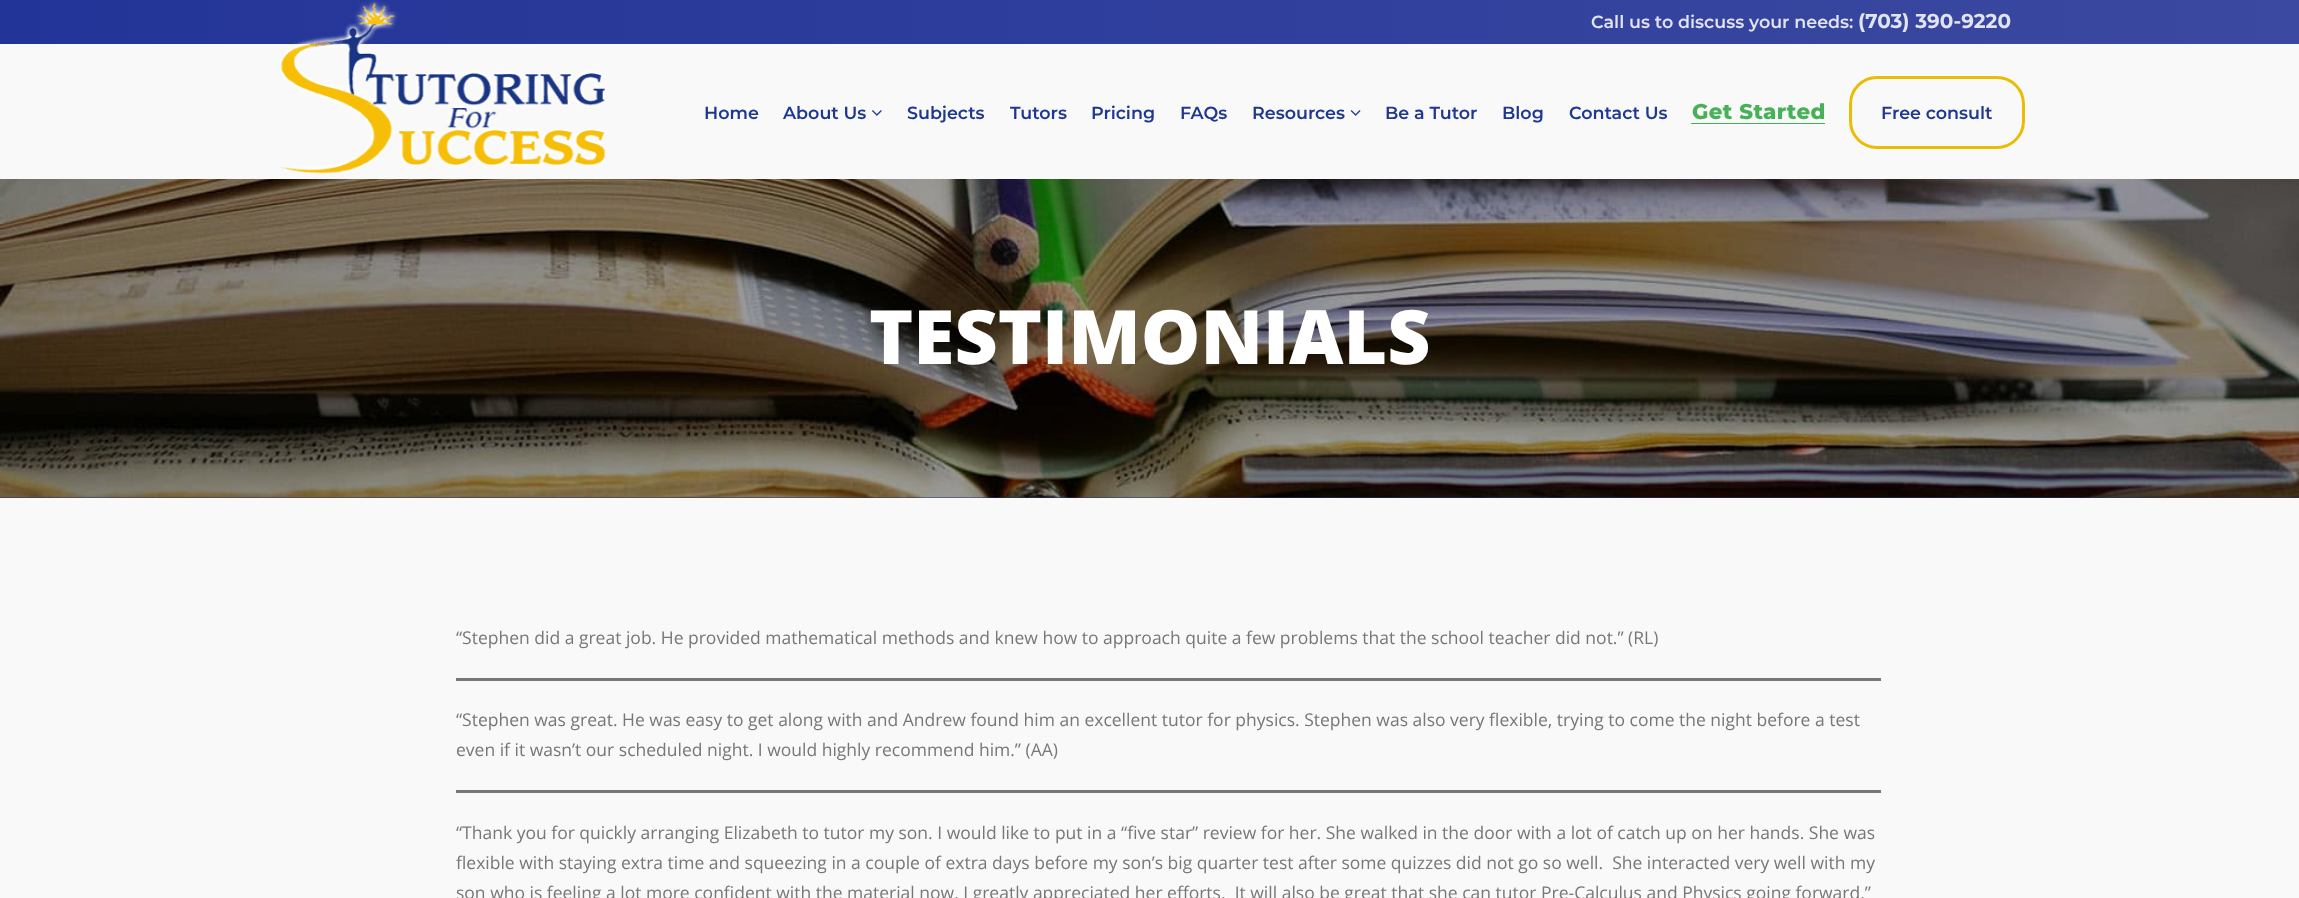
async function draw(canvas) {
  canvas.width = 2299
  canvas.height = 898
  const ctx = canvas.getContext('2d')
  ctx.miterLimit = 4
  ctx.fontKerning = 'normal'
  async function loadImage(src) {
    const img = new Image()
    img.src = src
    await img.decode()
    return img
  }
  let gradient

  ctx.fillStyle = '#f9f9f9'
  ctx.fillRect(0, 0, 2299, 898)
  gradient = ctx.createLinearGradient(0, 22, 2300, 22)
  gradient.addColorStop(0, '#233498')
  gradient.addColorStop(1, '#3b49a0')
  ctx.fillStyle = gradient
  ctx.fillRect(0, 0, 2299, 44)
  ctx.font = '600 17.5px Montserrat'
  ctx.fillStyle = '#e1e3f0'
  ctx.fillText('Call us to discuss your needs:', 1591, 28)
  ctx.font = 'bold 20px Montserrat'
  ctx.fillText('(703) 390-9220', 1858, 28)
  ctx.drawImage(await loadImage('image0.png'), 280, 0, 325, 174)
  ctx.font = '600 17.5px Montserrat'
  ctx.fillStyle = '#1e3791'
  ctx.fillText('Home', 704, 119)
  ctx.fillText('About Us', 783, 119)
  ctx.drawImage(await loadImage('image1.png'), 872, 110, 10, 6)
  ctx.fillText('Subjects', 907, 119)
  ctx.fillText('Tutors', 1010, 119)
  ctx.fillText('Pricing', 1091, 119)
  ctx.fillText('FAQs', 1180, 119)
  ctx.fillText('Resources', 1252, 119)
  ctx.drawImage(await loadImage('image2.png'), 1350, 110, 11, 6)
  ctx.fillText('Be a Tutor', 1385, 119)
  ctx.fillText('Blog', 1502, 119)
  ctx.fillText('Contact Us', 1569, 119)
  ctx.letterSpacing = '0.4px'
  ctx.font = '800 21.25px Montserrat'
  ctx.fillStyle = '#47b158'
  ctx.fillText('Get Started', 1692, 119)
  ctx.fillRect(1691, 123, 134, 1)
  ctx.beginPath()
  ctx.roundRect(1850.5, 77.5, 173, 70, 26.5)
  ctx.strokeStyle = '#eabc03'
  ctx.lineWidth = 3
  ctx.stroke()
  ctx.letterSpacing = '0px'
  ctx.font = '600 17.5px Montserrat'
  ctx.fillStyle = '#1e3791'
  ctx.fillText('Free consult', 1881, 119)
  ctx.fillStyle = '#26316d'
  ctx.fillRect(0, 497, 2299, 1)
  ctx.drawImage(await loadImage('image3.png'), 0, 179, 2299, 319)
  ctx.font = '800 75px Open Sans'
  ctx.fillStyle = '#fff'
  ctx.fillText('TESTIMONIALS', 869, 364)
  ctx.font = '17.5px Open Sans'
  ctx.fillStyle = '#777'
  ctx.fillText('“Stephen did a great job. He provided mathematical methods and knew how to approach quite a few problems that the school teacher did not.” (RL)', 456, 644)
  ctx.fillRect(456, 678, 1425, 3)
  ctx.fillText('“Stephen was great. He was easy to get along with and Andrew found him an excellent tutor for physics. Stephen was also very flexible, trying to come the night before a test', 456, 726)
  ctx.fillText('even if it wasn’t our scheduled night. I would highly recommend him.” (AA)', 456, 756)
  ctx.fillRect(456, 790, 1425, 3)
  ctx.fillText('“Thank you for quickly arranging Elizabeth to tutor my son. I would like to put in a “five star” review for her. She walked in the door with a lot of catch up on her hands. She was', 456, 839)
  ctx.fillText('flexible with staying extra time and squeezing in a couple of extra days before my son’s big quarter test after some quizzes did not go so well.  She interacted very well with my', 456, 869)
  ctx.fillText('son who is feeling a lot more confident with the material now. I greatly appreciated her efforts.  It will also be great that she can tutor Pre-Calculus and Physics going forward.”', 456, 899)
}

draw(document.querySelector('canvas'))
